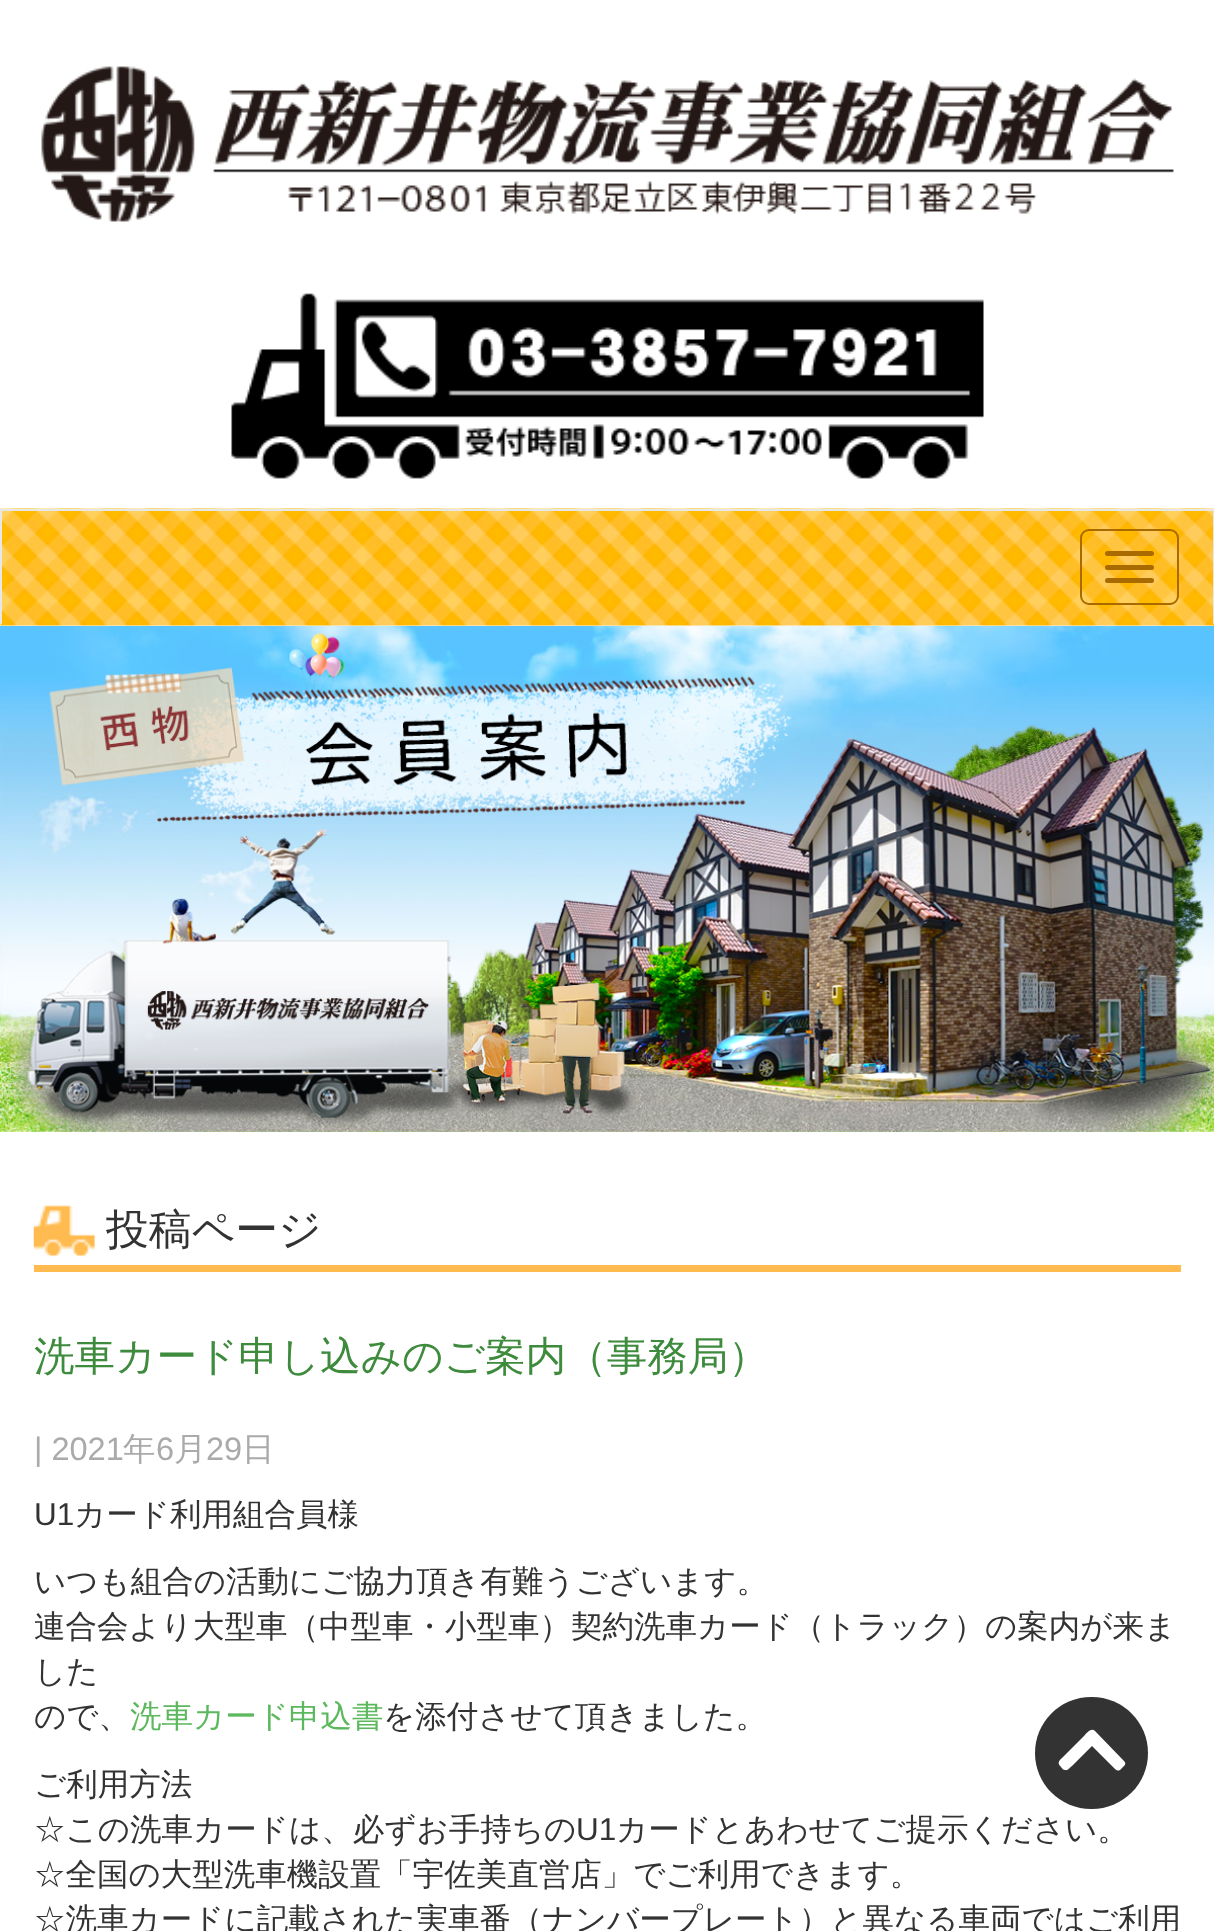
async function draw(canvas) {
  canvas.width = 1214
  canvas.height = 1931
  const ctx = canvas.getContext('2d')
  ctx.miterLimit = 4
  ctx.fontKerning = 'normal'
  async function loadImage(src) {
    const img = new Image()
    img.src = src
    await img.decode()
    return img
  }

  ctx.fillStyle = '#fff'
  ctx.fillRect(0, 0, 1214, 1931)
  ctx.drawImage(await loadImage('image0.png'), 41, 66, 1133, 156)
  ctx.drawImage(await loadImage('image1.png'), 231, 293, 753, 186)
  ctx.fillStyle = '#f8f8f8'
  ctx.fillRect(0, 625, 1214, 1)
  ctx.drawImage(await loadImage('image2.png'), 0, 508, 1214, 118)
  ctx.fillStyle = '#e7e7e7'
  ctx.fillRect(0, 509, 1214, 2)
  ctx.beginPath()
  ctx.moveTo(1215, 508)
  ctx.lineTo(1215, 626)
  ctx.lineTo(1213, 623)
  ctx.lineTo(1213, 511)
  ctx.closePath()
  ctx.fill()
  ctx.beginPath()
  ctx.moveTo(0, 626)
  ctx.lineTo(0, 508)
  ctx.lineTo(2, 511)
  ctx.lineTo(2, 623)
  ctx.closePath()
  ctx.fill()
  ctx.beginPath()
  ctx.roundRect(1081, 530, 97, 74, 8)
  ctx.strokeStyle = '#a96a00'
  ctx.lineWidth = 2
  ctx.stroke()
  ctx.fillStyle = '#a96a00'
  ctx.beginPath()
  ctx.roundRect(1105, 551, 49, 5, 2.5)
  ctx.fill()
  ctx.beginPath()
  ctx.roundRect(1105, 565, 49, 5, 2.5)
  ctx.fill()
  ctx.beginPath()
  ctx.roundRect(1105, 578, 49, 5, 2.5)
  ctx.fill()
  ctx.drawImage(await loadImage('image3.png'), 0, 626, 1214, 506)
  ctx.drawImage(await loadImage('image4.png'), 4, 633, 1210, 499)
  ctx.drawImage(await loadImage('image5.png'), 33, 1205, 63, 52)
  ctx.fillStyle = '#ffbb50'
  ctx.fillRect(34, 1265, 1147, 7)
  ctx.font = '500 42.75px WenQuanYi Zen Hei'
  ctx.fillStyle = '#333'
  ctx.fillText('投稿ページ', 106, 1244)
  ctx.font = '500 40.5px WenQuanYi Zen Hei'
  ctx.fillStyle = '#3e8b3e'
  ctx.fillText('洗車カード申し込みのご案内（事務局）', 34, 1370)
  ctx.font = '32.5px Liberation Sans'
  ctx.fillStyle = '#aaa'
  ctx.fillText('| 2021', 34, 1460)
  ctx.font = '500 32.5px WenQuanYi Zen Hei'
  ctx.fillText('年', 123, 1460)
  ctx.font = '32.5px Liberation Sans'
  ctx.fillText('6', 156, 1460)
  ctx.font = '500 32.5px WenQuanYi Zen Hei'
  ctx.fillText('月', 174, 1460)
  ctx.font = '32.5px Liberation Sans'
  ctx.fillText('29', 206, 1460)
  ctx.font = '500 32.5px WenQuanYi Zen Hei'
  ctx.fillText('日', 242, 1460)
  ctx.font = '31.5px Liberation Sans'
  ctx.fillStyle = '#333'
  ctx.fillText('U1', 34, 1525)
  ctx.font = '500 31.5px WenQuanYi Zen Hei'
  ctx.fillText('カード利用組合員様', 74, 1525)
  ctx.fillText('いつも組合の活動にご協力頂き有難うございます。', 34, 1592)
  ctx.fillText('連合会より大型車（中型車・小型車）契約洗車カード（トラック）の案内が来ま', 34, 1637)
  ctx.fillText('した', 34, 1682)
  ctx.fillText('ので、', 34, 1727)
  ctx.fillStyle = '#5cb85c'
  ctx.fillText('洗車カード申込書', 130, 1727)
  ctx.fillStyle = '#333'
  ctx.fillText('を添付させて頂きました。', 383, 1727)
  ctx.fillText('ご利用方法', 34, 1795)
  ctx.fillText('☆この洗車カードは、必ずお手持ちの', 34, 1840)
  ctx.font = '31.5px Liberation Sans'
  ctx.fillText('U1', 576, 1840)
  ctx.font = '500 31.5px WenQuanYi Zen Hei'
  ctx.fillText('カードとあわせてご提示ください。', 616, 1840)
  ctx.fillText('☆全国の大型洗車機設置「宇佐美直営店」でご利用できます。', 34, 1885)
  ctx.fillText('☆洗車カードに記載された実車番（ナンバープレート）と異なる車両ではご利用', 34, 1930)
  ctx.beginPath()
  ctx.roundRect(1035, 1697, 113, 112, 56)
  ctx.fill()
  ctx.fillStyle = '#fff'
  ctx.beginPath()
  ctx.moveTo(1095, 1731)
  ctx.lineTo(1124, 1761)
  ctx.bezierCurveTo(1127, 1764, 1124, 1766, 1122, 1768)
  ctx.bezierCurveTo(1118, 1773, 1116, 1770, 1112, 1766)
  ctx.lineTo(1092, 1746)
  ctx.lineTo(1072, 1766)
  ctx.bezierCurveTo(1070, 1767, 1068, 1771, 1065, 1770)
  ctx.bezierCurveTo(1063, 1770, 1062, 1768, 1061, 1767)
  ctx.bezierCurveTo(1056, 1762, 1060, 1760, 1064, 1756)
  ctx.lineTo(1084, 1736)
  ctx.bezierCurveTo(1086, 1734, 1091, 1727, 1095, 1731)
  ctx.closePath()
  ctx.fill()
}

draw(document.querySelector('canvas'))
